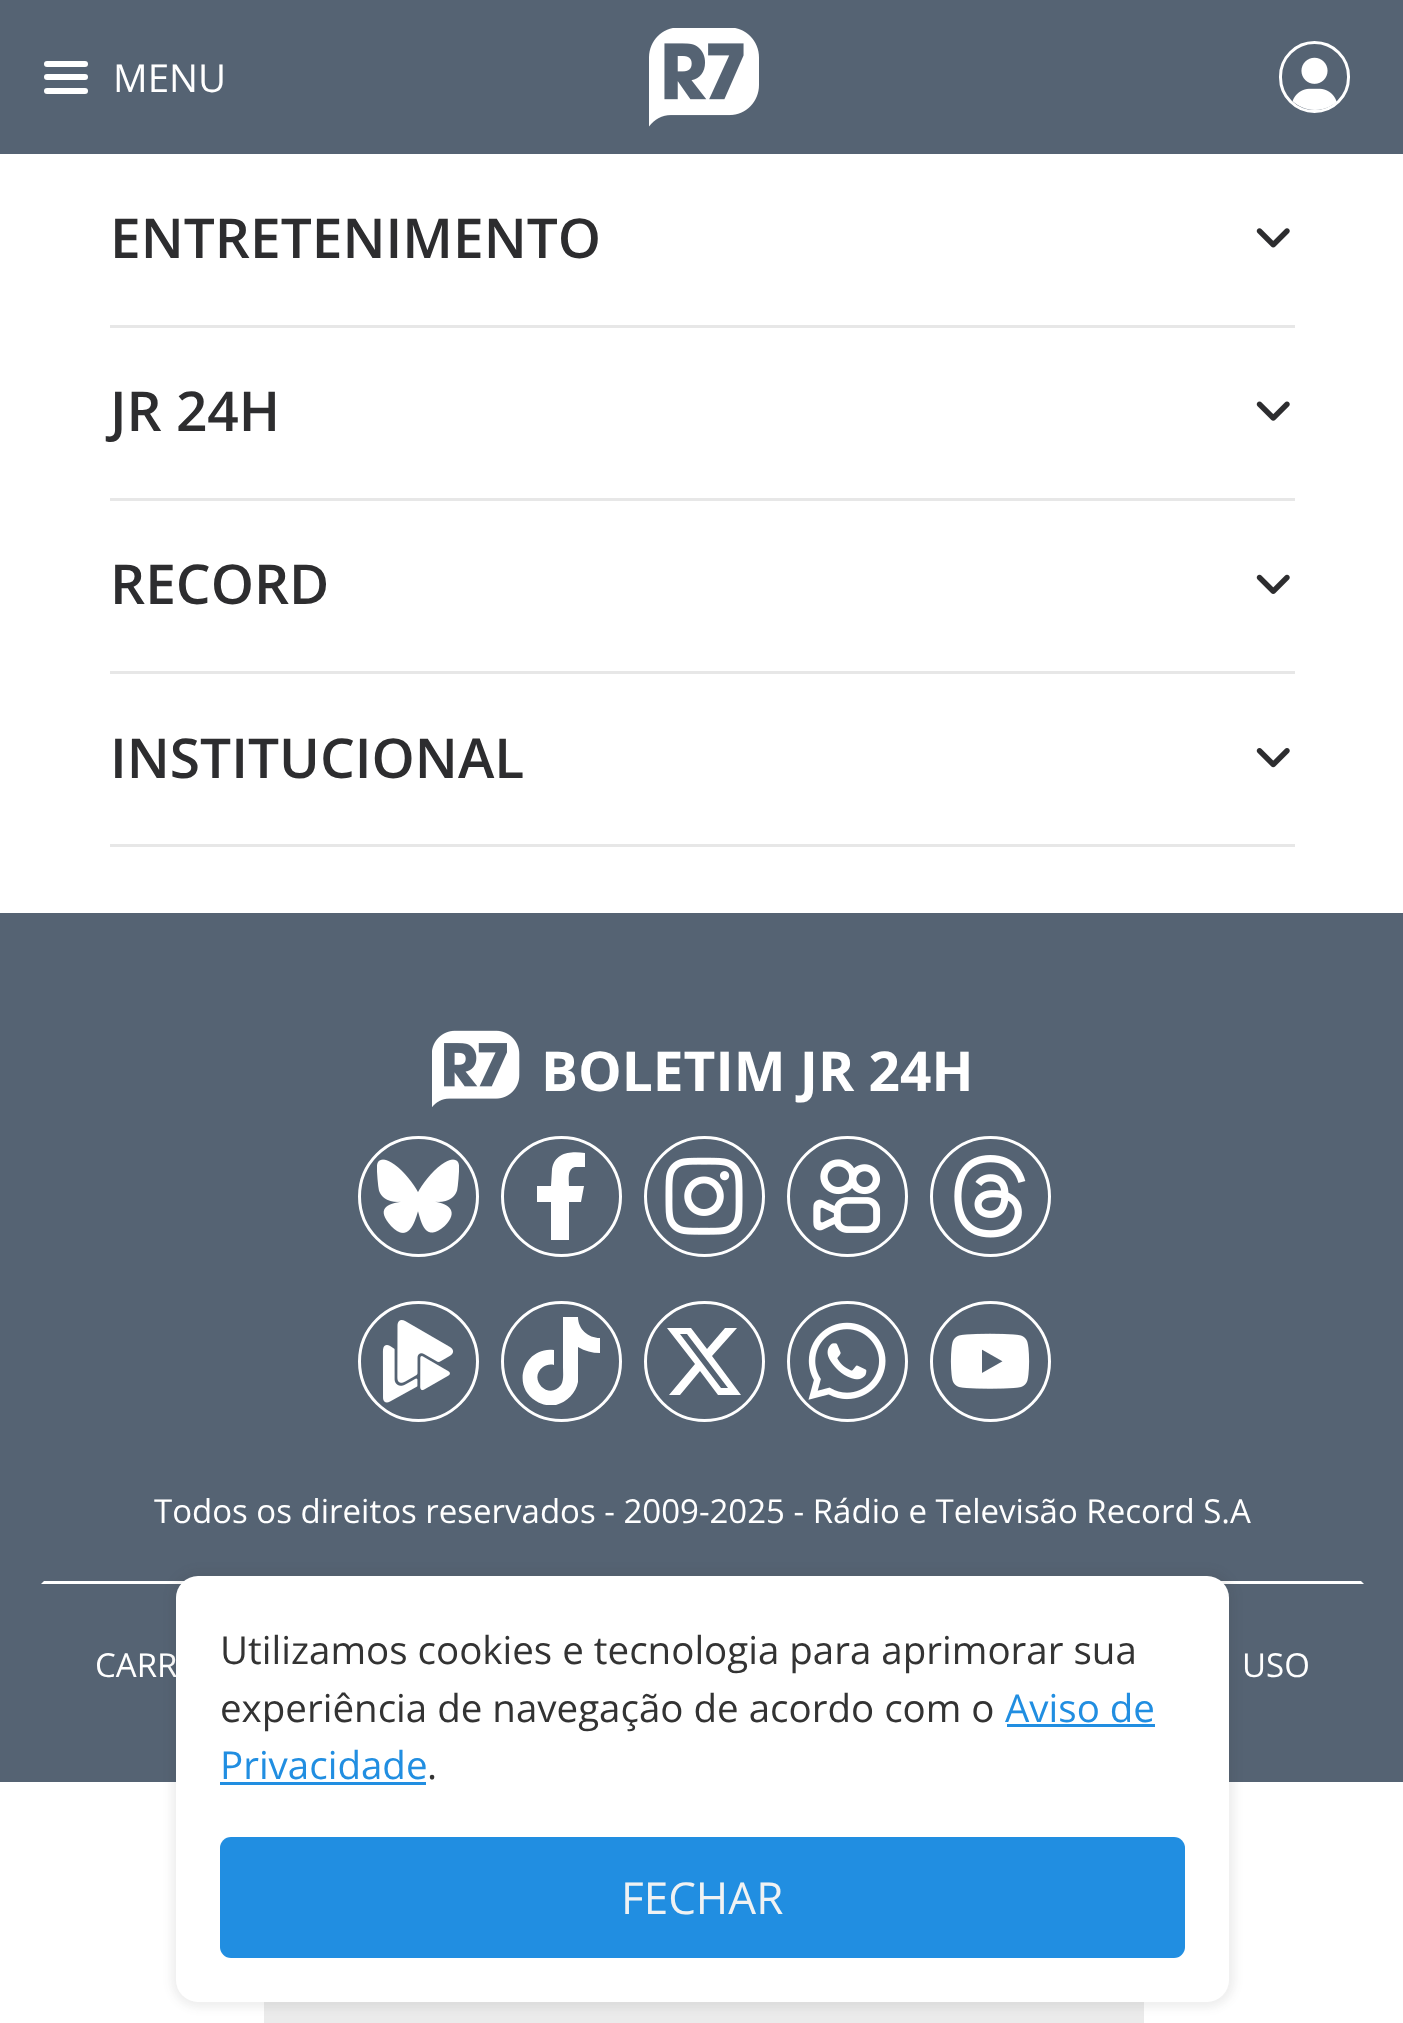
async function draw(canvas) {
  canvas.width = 1403
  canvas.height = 2023
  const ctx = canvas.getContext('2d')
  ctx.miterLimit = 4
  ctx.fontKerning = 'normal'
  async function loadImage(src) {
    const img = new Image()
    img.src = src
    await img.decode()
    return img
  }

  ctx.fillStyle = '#fff'
  ctx.fillRect(0, 0, 1403, 2023)
  ctx.fillStyle = '#556373'
  ctx.fillRect(0, 0, 1403, 154)
  ctx.fillStyle = '#fff'
  ctx.beginPath()
  ctx.roundRect(44, 61, 44, 6, 3)
  ctx.fill()
  ctx.beginPath()
  ctx.roundRect(44, 74, 44, 6, 3)
  ctx.fill()
  ctx.beginPath()
  ctx.roundRect(44, 88, 44, 6, 3)
  ctx.fill()
  ctx.font = '38.5px Open Sans'
  ctx.fillText('MENU', 113, 92)
  ctx.drawImage(await loadImage('image0.png'), 649, 28, 110, 99)
  ctx.beginPath()
  ctx.roundRect(1280.5, 42.5, 68, 69, 34)
  ctx.strokeStyle = '#fff'
  ctx.lineWidth = 3
  ctx.stroke()
  ctx.drawImage(await loadImage('image1.png'), 1292, 57, 45, 53)
  ctx.fillStyle = '#e7e7e7'
  ctx.fillRect(110, 325, 1185, 3)
  ctx.font = '600 55px Open Sans'
  ctx.fillStyle = '#2d2d2f'
  ctx.fillText('ENTRETENIMENTO', 110, 258)
  ctx.drawImage(await loadImage('image2.png'), 1256, 228, 34, 20)
  ctx.fillStyle = '#e7e7e7'
  ctx.fillRect(110, 498, 1185, 3)
  ctx.fillStyle = '#2d2d2f'
  ctx.fillText('JR 24H', 110, 431)
  ctx.drawImage(await loadImage('image3.png'), 1256, 401, 34, 20)
  ctx.fillStyle = '#e7e7e7'
  ctx.fillRect(110, 671, 1185, 3)
  ctx.fillStyle = '#2d2d2f'
  ctx.fillText('RECORD', 110, 604)
  ctx.drawImage(await loadImage('image4.png'), 1256, 574, 34, 20)
  ctx.fillStyle = '#e7e7e7'
  ctx.fillRect(110, 844, 1185, 3)
  ctx.fillStyle = '#2d2d2f'
  ctx.fillText('INSTITUCIONAL', 110, 778)
  ctx.drawImage(await loadImage('image5.png'), 1256, 748, 34, 20)
  ctx.fillStyle = '#556373'
  ctx.fillRect(0, 913, 1403, 869)
  ctx.fillStyle = '#fff'
  ctx.beginPath()
  ctx.moveTo(1364, 1584)
  ctx.lineTo(41, 1584)
  ctx.lineTo(44, 1581)
  ctx.lineTo(1361, 1581)
  ctx.closePath()
  ctx.fill()
  ctx.drawImage(await loadImage('image6.png'), 432, 1030, 88, 77)
  ctx.font = 'bold 55px Open Sans'
  ctx.fillText('BOLETIM JR 24H', 541, 1091)
  ctx.beginPath()
  ctx.arc(418.5, 1196.5, 59, 0, 2 * Math.PI)
  ctx.stroke()
  ctx.drawImage(await loadImage('image7.png'), 377, 1159, 82, 74)
  ctx.beginPath()
  ctx.arc(561.5, 1196.5, 59, 0, 2 * Math.PI)
  ctx.stroke()
  ctx.beginPath()
  ctx.moveTo(581, 1202)
  ctx.lineTo(584, 1186)
  ctx.lineTo(569, 1186)
  ctx.bezierCurveTo(569, 1179, 567, 1169, 575, 1167)
  ctx.lineTo(585, 1167)
  ctx.lineTo(585, 1153)
  ctx.bezierCurveTo(571, 1151, 555, 1152, 552, 1169)
  ctx.lineTo(551, 1186)
  ctx.lineTo(537, 1186)
  ctx.lineTo(537, 1202)
  ctx.lineTo(551, 1202)
  ctx.lineTo(551, 1240)
  ctx.lineTo(569, 1240)
  ctx.lineTo(569, 1202)
  ctx.closePath()
  ctx.fill()
  ctx.beginPath()
  ctx.arc(704.5, 1196.5, 59, 0, 2 * Math.PI)
  ctx.stroke()
  ctx.drawImage(await loadImage('image8.png'), 665, 1157, 78, 78)
  ctx.beginPath()
  ctx.arc(847.5, 1196.5, 59, 0, 2 * Math.PI)
  ctx.stroke()
  ctx.drawImage(await loadImage('image9.png'), 813, 1159, 68, 74)
  ctx.beginPath()
  ctx.arc(990.5, 1196.5, 59, 0, 2 * Math.PI)
  ctx.stroke()
  ctx.drawImage(await loadImage('image10.png'), 954, 1155, 72, 83)
  ctx.beginPath()
  ctx.arc(418.5, 1361.5, 59, 0, 2 * Math.PI)
  ctx.stroke()
  ctx.drawImage(await loadImage('image11.png'), 382, 1320, 72, 83)
  ctx.beginPath()
  ctx.arc(561.5, 1361.5, 59, 0, 2 * Math.PI)
  ctx.stroke()
  ctx.save()
  ctx.beginPath()
  ctx.rect(520, 1317, 82, 88)
  ctx.clip()
  ctx.beginPath()
  ctx.moveTo(600, 1353)
  ctx.bezierCurveTo(592, 1353, 585, 1351, 578, 1347)
  ctx.lineTo(578, 1382)
  ctx.bezierCurveTo(576, 1393, 567, 1402, 556, 1405)
  ctx.bezierCurveTo(549, 1406, 542, 1405, 536, 1401)
  ctx.bezierCurveTo(510, 1385, 525, 1346, 554, 1350)
  ctx.lineTo(554, 1365)
  ctx.bezierCurveTo(550, 1364, 546, 1365, 543, 1367)
  ctx.bezierCurveTo(527, 1379, 549, 1401, 561, 1385)
  ctx.bezierCurveTo(564, 1380, 563, 1373, 563, 1367)
  ctx.lineTo(563, 1317)
  ctx.lineTo(578, 1317)
  ctx.bezierCurveTo(578, 1329, 588, 1338, 600, 1338)
  ctx.closePath()
  ctx.fill()
  ctx.restore()
  ctx.beginPath()
  ctx.arc(704.5, 1361.5, 59, 0, 2 * Math.PI)
  ctx.stroke()
  ctx.beginPath()
  ctx.moveTo(725, 1328)
  ctx.lineTo(737, 1328)
  ctx.lineTo(712, 1356)
  ctx.lineTo(741, 1395)
  ctx.lineTo(718, 1395)
  ctx.lineTo(700, 1371)
  ctx.lineTo(680, 1395)
  ctx.lineTo(669, 1395)
  ctx.lineTo(695, 1364)
  ctx.lineTo(667, 1328)
  ctx.lineTo(691, 1328)
  ctx.lineTo(707, 1349)
  ctx.closePath()
  ctx.moveTo(721, 1388)
  ctx.lineTo(728, 1388)
  ctx.lineTo(687, 1334)
  ctx.lineTo(680, 1334)
  ctx.closePath()
  ctx.fill()
  ctx.beginPath()
  ctx.arc(847.5, 1361.5, 59, 0, 2 * Math.PI)
  ctx.stroke()
  ctx.drawImage(await loadImage('image12.png'), 808, 1322, 78, 78)
  ctx.beginPath()
  ctx.arc(990.5, 1361.5, 59, 0, 2 * Math.PI)
  ctx.stroke()
  ctx.drawImage(await loadImage('image13.png'), 950, 1333, 80, 56)
  ctx.font = '33px Open Sans'
  ctx.fillText('Todos os direitos reservados - 2009-2025 - Rádio e Televisão Record S.A', 154, 1523)
  ctx.fillText('CARR', 95, 1677)
  ctx.fillText('USO', 1242, 1677)
  ctx.fillStyle = '#ebebeb'
  ctx.fillRect(264, 2002, 880, 21)
  ctx.fillStyle = '#33333314'
  ctx.filter = 'blur(4.5px)'
  ctx.beginPath()
  ctx.roundRect(171, 1570, 1064, 438, 28)
  ctx.fill()
  ctx.filter = 'none'
  ctx.fillStyle = '#fff'
  ctx.beginPath()
  ctx.roundRect(176, 1576, 1053, 426, 22)
  ctx.fill()
  ctx.font = '38.5px Open Sans'
  ctx.fillStyle = '#333'
  ctx.fillText('Utilizamos cookies e tecnologia para aprimorar sua', 220, 1664)
  ctx.fillText('experiência de navegação de acordo com o', 220, 1722)
  ctx.fillStyle = '#218ee1'
  ctx.fillText('Aviso de', 1005, 1722)
  ctx.fillRect(1007, 1724, 148, 3)
  ctx.fillText('Privacidade', 220, 1779)
  ctx.fillRect(220, 1782, 206, 3)
  ctx.fillStyle = '#333'
  ctx.fillText('.', 427, 1779)
  ctx.fillStyle = '#218ee1'
  ctx.beginPath()
  ctx.roundRect(220, 1837, 965, 121, 11)
  ctx.fill()
  ctx.font = '44px Open Sans'
  ctx.fillStyle = '#f0f2f3'
  ctx.fillText('FECHAR', 621, 1914)
}

draw(document.querySelector('canvas'))
